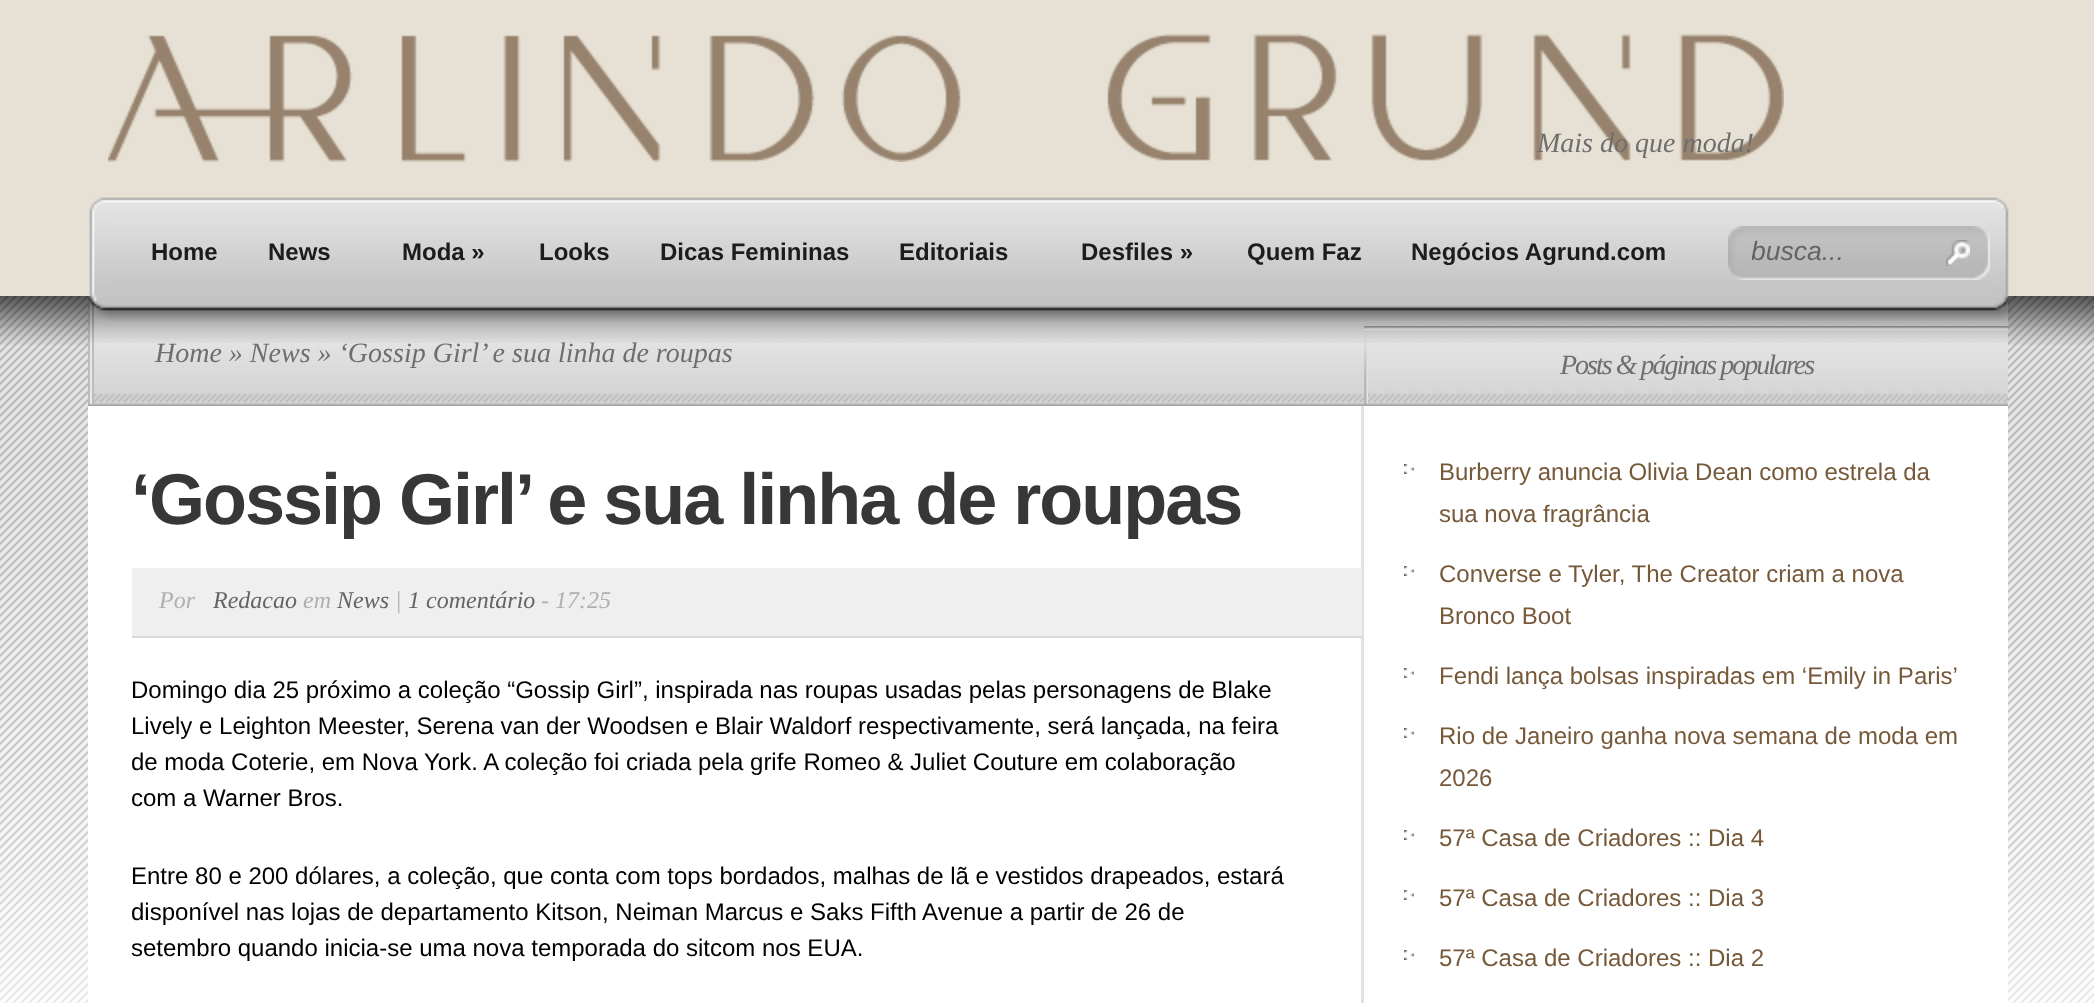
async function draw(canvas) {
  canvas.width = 2094
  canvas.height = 1003
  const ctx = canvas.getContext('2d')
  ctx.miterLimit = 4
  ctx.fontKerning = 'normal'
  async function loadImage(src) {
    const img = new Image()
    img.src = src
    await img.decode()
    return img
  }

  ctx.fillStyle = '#e7e1d5'
  ctx.fillRect(0, 0, 2094, 1003)
  ctx.drawImage(await loadImage('image0.png'), 108, 34, 1676, 128)
  ctx.font = 'italic 28px Liberation Serif'
  ctx.fillStyle = '#6e6e6e'
  ctx.fillText('Mais do que moda!', 1537, 152)
  ctx.drawImage(await loadImage('image6.png'), 0, 296, 2094, 707)
  ctx.drawImage(await loadImage('image7.png'), 0, 296, 2094, 49)
  ctx.drawImage(await loadImage('image8.png'), 88, 296, 1920, 110)
  ctx.drawImage(await loadImage('image10.png'), 88, 296, 6, 108)
  ctx.fillText('Home » News » ‘Gossip Girl’ e sua linha de roupas', 155, 362)
  ctx.drawImage(await loadImage('image11.png'), 1364, 326, 4, 79)
  ctx.drawImage(await loadImage('image12.png'), 1368, 326, 640, 79)
  ctx.drawImage(await loadImage('image9.png'), 88, 296, 1920, 47)
  ctx.drawImage(await loadImage('image1.png'), 88, 197, 20, 123)
  ctx.drawImage(await loadImage('image2.png'), 108, 197, 1882, 124)
  ctx.font = 'bold 24px Liberation Sans'
  ctx.fillStyle = '#1c1c1c'
  ctx.fillText('Home', 151, 260)
  ctx.fillText('News', 268, 260)
  ctx.fillText('Moda »', 402, 260)
  ctx.fillText('Looks', 539, 260)
  ctx.fillText('Dicas Femininas', 660, 260)
  ctx.fillText('Editoriais', 899, 260)
  ctx.fillText('Desfiles »', 1081, 260)
  ctx.fillText('Quem Faz', 1247, 260)
  ctx.fillText('Negócios Agrund.com', 1411, 260)
  ctx.drawImage(await loadImage('image3.png'), 1728, 226, 262, 54)
  ctx.save()
  ctx.beginPath()
  ctx.rect(1752, 236, 190, 30)
  ctx.clip()
  ctx.font = 'italic 26.5px Liberation Sans'
  ctx.fillStyle = '#656363'
  ctx.fillText('busca...', 1751, 260)
  ctx.restore()
  ctx.drawImage(await loadImage('image4.png'), 1946, 240, 24, 26)
  ctx.drawImage(await loadImage('image5.png'), 1990, 197, 24, 124)
  ctx.fillStyle = '#fff'
  ctx.fillRect(88, 406, 1920, 597)
  ctx.fillStyle = '#e1e1e1'
  ctx.fillRect(1361, 406, 3, 597)
  ctx.letterSpacing = '-2px'
  ctx.font = 'italic 28px Liberation Serif'
  ctx.fillStyle = '#6e6e6e'
  ctx.fillText('Posts & páginas populares', 1560, 374)
  ctx.drawImage(await loadImage('image13.png'), 1404, 464, 10, 10)
  ctx.letterSpacing = '0px'
  ctx.font = '24px Liberation Sans'
  ctx.fillStyle = '#765939'
  ctx.fillText('Burberry anuncia Olivia Dean como estrela da', 1439, 480)
  ctx.fillText('sua nova fragrância', 1439, 522)
  ctx.drawImage(await loadImage('image13.png'), 1404, 566, 10, 10)
  ctx.fillText('Converse e Tyler, The Creator criam a nova', 1439, 582)
  ctx.fillText('Bronco Boot', 1439, 624)
  ctx.drawImage(await loadImage('image13.png'), 1404, 668, 10, 10)
  ctx.fillText('Fendi lança bolsas inspiradas em ‘Emily in Paris’', 1439, 684)
  ctx.drawImage(await loadImage('image13.png'), 1404, 728, 10, 10)
  ctx.fillText('Rio de Janeiro ganha nova semana de moda em', 1439, 744)
  ctx.fillText('2026', 1439, 786)
  ctx.drawImage(await loadImage('image13.png'), 1404, 830, 10, 10)
  ctx.fillText('57ª Casa de Criadores :: Dia 4', 1439, 846)
  ctx.drawImage(await loadImage('image13.png'), 1404, 890, 10, 10)
  ctx.fillText('57ª Casa de Criadores :: Dia 3', 1439, 906)
  ctx.drawImage(await loadImage('image13.png'), 1404, 950, 10, 10)
  ctx.fillText('57ª Casa de Criadores :: Dia 2', 1439, 966)
  ctx.letterSpacing = '-2px'
  ctx.font = 'bold 72px Liberation Sans'
  ctx.fillStyle = '#383737'
  ctx.fillText('‘Gossip Girl’ e sua linha de roupas', 131, 524)
  ctx.fillStyle = '#efefef'
  ctx.fillRect(132, 568, 1230, 68)
  ctx.fillStyle = '#d8d8d8'
  ctx.fillRect(132, 636, 1230, 2)
  ctx.letterSpacing = '0px'
  ctx.font = 'italic 24px Liberation Serif'
  ctx.fillStyle = '#afafaf'
  ctx.fillText('Por', 159, 608)
  ctx.fillStyle = '#656363'
  ctx.fillText('Redacao', 213, 608)
  ctx.fillStyle = '#afafaf'
  ctx.fillText('em', 303, 608)
  ctx.fillStyle = '#656363'
  ctx.fillText('News', 337, 608)
  ctx.fillStyle = '#afafaf'
  ctx.fillText('|', 395, 608)
  ctx.fillStyle = '#656363'
  ctx.fillText('1 comentário', 408, 608)
  ctx.fillStyle = '#afafaf'
  ctx.fillText('- 17:25', 541, 608)
  ctx.font = '24px Liberation Sans'
  ctx.fillStyle = '#000'
  ctx.fillText('Domingo dia 25 próximo a coleção “Gossip Girl”, inspirada nas roupas usadas pelas personagens de Blake', 131, 698)
  ctx.fillText('Lively e Leighton Meester, Serena van der Woodsen e Blair Waldorf respectivamente, será lançada, na feira', 131, 734)
  ctx.fillText('de moda Coterie, em Nova York. A coleção foi criada pela grife Romeo & Juliet Couture em colaboração', 131, 770)
  ctx.fillText('com a Warner Bros.', 131, 806)
  ctx.fillText('Entre 80 e 200 dólares, a coleção, que conta com tops bordados, malhas de lã e vestidos drapeados, estará', 131, 884)
  ctx.fillText('disponível nas lojas de departamento Kitson, Neiman Marcus e Saks Fifth Avenue a partir de 26 de', 131, 920)
  ctx.fillText('setembro quando inicia-se uma nova temporada do sitcom nos EUA.', 131, 956)
}

draw(document.querySelector('canvas'))
